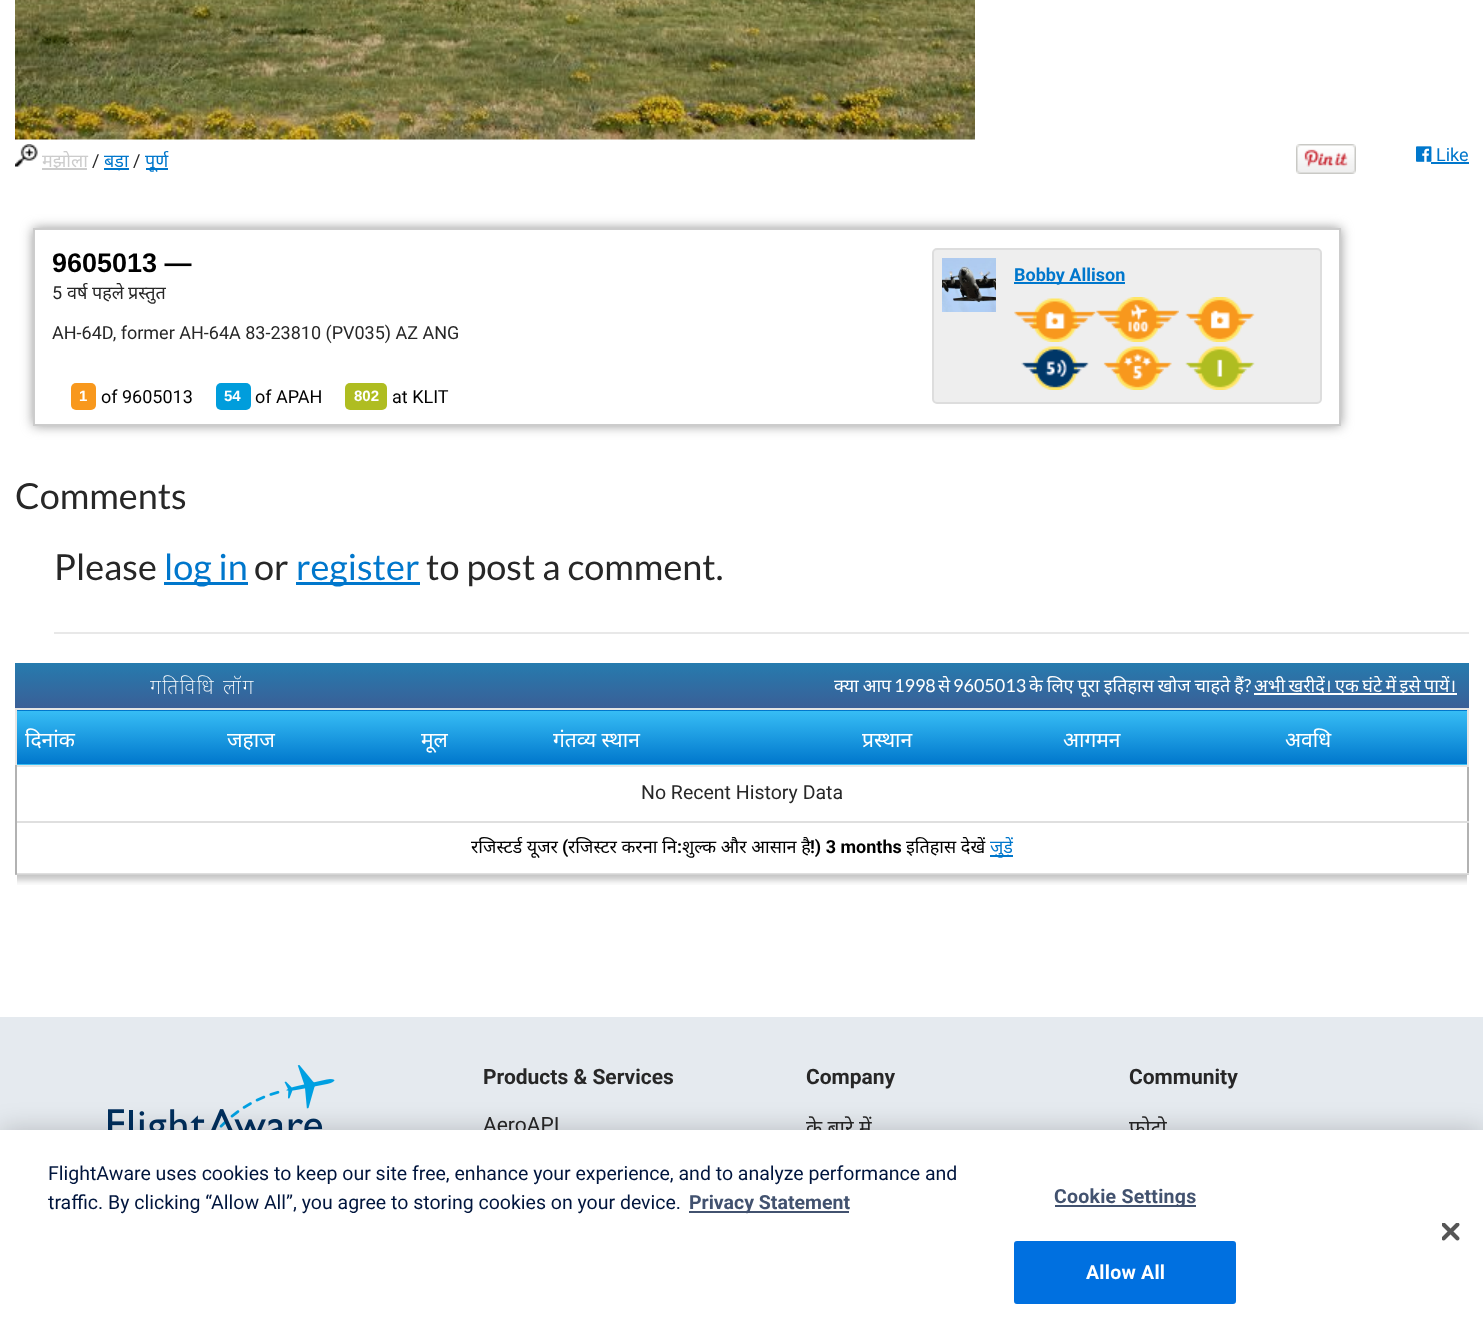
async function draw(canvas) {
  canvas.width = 1483
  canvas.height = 1333
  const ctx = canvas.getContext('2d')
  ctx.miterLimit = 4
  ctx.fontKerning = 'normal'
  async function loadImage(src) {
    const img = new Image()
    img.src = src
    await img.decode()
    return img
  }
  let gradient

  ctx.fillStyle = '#fff'
  ctx.fillRect(0, 0, 1483, 1333)
  ctx.drawImage(await loadImage('image0.png'), 15, 0, 960, 140)
  ctx.drawImage(await loadImage('image1.png'), 15, 144, 23, 23)
  ctx.fillStyle = '#ccc'
  ctx.fillRect(42, 168, 45, 2)
  ctx.font = '18px Noto Sans'
  ctx.fillText('मझोला', 42, 167)
  ctx.font = '18px Roboto'
  ctx.fillStyle = '#272727'
  ctx.fillText('/', 92, 167)
  ctx.fillStyle = '#07c'
  ctx.fillRect(104, 168, 25, 2)
  ctx.font = '18px Noto Sans'
  ctx.fillText('बड़ा', 104, 167)
  ctx.font = '18px Roboto'
  ctx.fillStyle = '#272727'
  ctx.fillText('/', 133, 167)
  ctx.fillStyle = '#07c'
  ctx.fillRect(146, 168, 22, 2)
  ctx.font = '18px Noto Sans'
  ctx.fillText('पूर्ण', 145, 167)
  ctx.drawImage(await loadImage('image2.png'), 1296, 144, 60, 30)
  ctx.drawImage(await loadImage('image3.png'), 1416, 146, 16, 16)
  ctx.font = '18px Roboto'
  ctx.fillText('Like', 1436, 161)
  ctx.fillRect(1431, 162, 38, 2)
  ctx.save()
  ctx.beginPath()
  ctx.moveTo(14, 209)
  ctx.lineTo(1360, 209)
  ctx.lineTo(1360, 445)
  ctx.lineTo(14, 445)
  ctx.closePath()
  ctx.moveTo(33, 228)
  ctx.lineTo(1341, 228)
  ctx.lineTo(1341, 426)
  ctx.lineTo(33, 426)
  ctx.closePath()
  ctx.clip('evenodd')
  ctx.fillStyle = '#999'
  ctx.filter = 'blur(6px)'
  ctx.beginPath()
  ctx.rect(33, 228, 1308, 198)
  ctx.fill()
  ctx.filter = 'none'
  ctx.restore()
  ctx.strokeStyle = '#ccc'
  ctx.lineWidth = 2
  ctx.strokeRect(34, 229, 1306, 196)
  ctx.font = 'bold 27px Liberation Sans'
  ctx.fillStyle = '#000'
  ctx.fillText('9605013 —', 52, 272)
  ctx.font = '18px Roboto'
  ctx.fillStyle = '#272727'
  ctx.fillText('5', 52, 299)
  ctx.font = '18px Noto Sans'
  ctx.fillText('वर्ष पहले', 67, 299)
  ctx.fillText('प्रस्तुत', 128, 299)
  ctx.font = '18px Roboto'
  ctx.fillText('AH-64D, former AH-64A 83-23810 (PV035) AZ ANG', 52, 339)
  ctx.fillStyle = '#f8981d'
  ctx.beginPath()
  ctx.roundRect(71, 383, 25, 27, 5)
  ctx.fill()
  ctx.font = 'bold 15px Liberation Sans'
  ctx.fillStyle = '#fff'
  ctx.fillText('1', 79, 401)
  ctx.font = '18px Roboto'
  ctx.fillStyle = '#000'
  ctx.fillText('of 9605013', 101, 403)
  ctx.fillStyle = '#009ddc'
  ctx.beginPath()
  ctx.roundRect(216, 383, 35, 27, 5)
  ctx.fill()
  ctx.font = 'bold 15px Liberation Sans'
  ctx.fillStyle = '#fff'
  ctx.fillText('54', 224, 401)
  ctx.font = '18px Roboto'
  ctx.fillStyle = '#000'
  ctx.fillText('of APAH', 255, 403)
  ctx.fillStyle = '#afbd21'
  ctx.beginPath()
  ctx.roundRect(345, 383, 42, 27, 5)
  ctx.fill()
  ctx.font = 'bold 15px Liberation Sans'
  ctx.fillStyle = '#fff'
  ctx.fillText('802', 354, 401)
  ctx.font = '18px Roboto'
  ctx.fillStyle = '#000'
  ctx.fillText('at KLIT', 392, 403)
  ctx.fillStyle = '#eee'
  ctx.beginPath()
  ctx.roundRect(933, 249, 388, 154, 4)
  ctx.fill()
  ctx.strokeStyle = '#ddd'
  ctx.stroke()
  ctx.drawImage(await loadImage('image4.png'), 942, 258, 54, 54)
  ctx.fillStyle = '#07c'
  ctx.fillRect(1014, 282, 111, 2)
  ctx.font = 'bold 18px Roboto'
  ctx.fillText('Bobby Allison', 1014, 281)
  ctx.drawImage(await loadImage('image5.png'), 1014, 298, 83, 44)
  ctx.drawImage(await loadImage('image6.png'), 1096, 297, 83, 45)
  ctx.drawImage(await loadImage('image7.png'), 1185, 297, 70, 45)
  ctx.drawImage(await loadImage('image8.png'), 1021, 346, 68, 44)
  ctx.drawImage(await loadImage('image9.png'), 1103, 346, 69, 44)
  ctx.drawImage(await loadImage('image10.png'), 1185, 346, 70, 44)
  ctx.font = '36px Lato'
  ctx.fillStyle = '#272727'
  ctx.fillText('Comments', 15, 509)
  ctx.fillStyle = '#e8e8e8'
  ctx.fillRect(54, 632, 1415, 2)
  ctx.fillStyle = '#272727'
  ctx.fillText('Please', 54, 580)
  ctx.fillStyle = '#07c'
  ctx.fillRect(164, 582, 84, 3)
  ctx.fillText('log in', 164, 580)
  ctx.fillStyle = '#272727'
  ctx.fillText('or', 254, 580)
  ctx.fillStyle = '#07c'
  ctx.fillRect(296, 582, 124, 3)
  ctx.fillText('register', 296, 580)
  ctx.fillStyle = '#272727'
  ctx.fillText('to post a comment.', 426, 580)
  gradient = ctx.createLinearGradient(15, 663, 15, 708)
  gradient.addColorStop(0, '#267bae')
  gradient.addColorStop(1, '#3a5f97')
  ctx.fillStyle = gradient
  ctx.fillRect(15, 663, 1454, 45)
  ctx.letterSpacing = '1.5px'
  ctx.wordSpacing = '1px'
  ctx.font = '200 21px Noto Sans'
  ctx.fillStyle = '#fff'
  ctx.fillText('गतिविधि लॉग', 150, 694)
  ctx.letterSpacing = '0px'
  ctx.wordSpacing = '-0.75px'
  ctx.font = '18px Noto Sans'
  ctx.fillText('क्या आप', 834, 692)
  ctx.wordSpacing = '0px'
  ctx.font = '18px Lato'
  ctx.fillText('1998', 894, 692)
  ctx.font = '18px Noto Sans'
  ctx.fillText('से', 938, 692)
  ctx.font = '18px Lato'
  ctx.fillText('9605013', 953, 692)
  ctx.wordSpacing = '-0.75px'
  ctx.font = '18px Noto Sans'
  ctx.fillText('के लिए पूरा इतिहास खोज चाहते हैं', 1029, 692)
  ctx.wordSpacing = '0px'
  ctx.font = '18px Lato'
  ctx.fillText('?', 1244, 692)
  ctx.fillRect(1254, 693, 203, 2)
  ctx.wordSpacing = '-1.25px'
  ctx.font = '18px Noto Sans'
  ctx.fillText('अभी खरीदें। एक घंटे में इसे पायें।', 1254, 692)
  ctx.fillStyle = '#b2b2b2'
  ctx.fillRect(1467, 767, 2, 108)
  gradient = ctx.createLinearGradient(17, 659, 17, 711)
  gradient.addColorStop(0, '#37bdf5')
  gradient.addColorStop(1, '#07c')
  ctx.fillStyle = gradient
  ctx.fillRect(15, 710, 1454, 1)
  gradient = ctx.createLinearGradient(17, 711, 17, 764)
  gradient.addColorStop(0, '#37bdf5')
  gradient.addColorStop(1, '#07c')
  ctx.fillStyle = gradient
  ctx.fillRect(17, 711, 1450, 53)
  gradient = ctx.createLinearGradient(17, 764, 17, 816)
  gradient.addColorStop(0, '#37bdf5')
  gradient.addColorStop(1, '#07c')
  ctx.fillStyle = gradient
  ctx.fillRect(15, 764, 1454, 1)
  ctx.fillStyle = '#e5e5e4'
  ctx.fillRect(15, 708, 1454, 2)
  ctx.fillRect(1467, 708, 2, 59)
  ctx.fillRect(15, 765, 1454, 2)
  ctx.fillRect(15, 708, 2, 59)
  ctx.wordSpacing = '0px'
  ctx.font = '21px Noto Sans'
  ctx.fillStyle = '#fff'
  ctx.fillText('दिनांक', 25, 747)
  ctx.fillText('जहाज', 227, 747)
  ctx.fillText('मूल', 421, 747)
  ctx.fillText('गंतव्य स्थान', 553, 747)
  ctx.fillText('प्रस्थान', 862, 747)
  ctx.fillText('आगमन', 1063, 747)
  ctx.fillText('अवधि', 1285, 747)
  ctx.fillStyle = '#dfdfdf'
  ctx.fillRect(15, 821, 1454, 2)
  ctx.font = '19.5px Roboto'
  ctx.fillStyle = '#272727'
  ctx.fillText('No Recent History Data', 641, 799)
  ctx.fillStyle = '#dfdfdf'
  ctx.fillRect(15, 873, 1454, 2)
  ctx.fillStyle = '#b2b2b2'
  ctx.fillRect(15, 765, 2, 110)
  ctx.font = '18px Noto Sans'
  ctx.fillStyle = '#000'
  ctx.fillText('रजिस्टर्ड यूजर', 471, 853)
  ctx.font = 'bold 18px Roboto'
  ctx.fillText('(', 562, 853)
  ctx.font = '18px Noto Sans'
  ctx.fillText('रजिस्टर करना नि', 568, 853)
  ctx.font = 'bold 18px Roboto'
  ctx.fillText(':', 677, 853)
  ctx.font = '18px Noto Sans'
  ctx.fillText('शुल्क और आसान है', 682, 853)
  ctx.font = 'bold 18px Roboto'
  ctx.fillText('!) 3 months', 810, 853)
  ctx.font = '18px Noto Sans'
  ctx.fillText('इतिहास देखें', 906, 853)
  ctx.fillStyle = '#07c'
  ctx.fillRect(990, 855, 23, 2)
  ctx.fillText('जुड़ें', 990, 853)
  ctx.drawImage(await loadImage('image11.png'), 15, 874, 1454, 11)
  ctx.fillStyle = '#fff'
  ctx.fillRect(1467, 875, 2, 10)
  ctx.fillRect(15, 875, 2, 10)
  ctx.fillStyle = '#e5eaef'
  ctx.fillRect(0, 1017, 1483, 113)
  ctx.drawImage(await loadImage('image12.png'), 108, 1065, 227, 65)
  ctx.font = 'bold 21px Roboto'
  ctx.fillStyle = '#272727'
  ctx.fillText('Products & Services', 483, 1084)
  ctx.font = '21px Roboto'
  ctx.fillText('AeroAPI', 483, 1132)
  ctx.font = 'bold 21px Roboto'
  ctx.fillText('Company', 806, 1084)
  ctx.font = '21px Noto Sans'
  ctx.fillText('के बारे में', 806, 1135)
  ctx.font = 'bold 21px Roboto'
  ctx.fillText('Community', 1129, 1084)
  ctx.font = '21px Noto Sans'
  ctx.fillText('फोटो', 1129, 1135)
  ctx.fillStyle = '#00000033'
  ctx.filter = 'blur(13.5px)'
  ctx.beginPath()
  ctx.rect(0, 1130, 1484, 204)
  ctx.fill()
  ctx.filter = 'none'
  ctx.fillStyle = '#fff'
  ctx.fillRect(0, 1130, 1483, 203)
  ctx.font = '19.5px Roboto'
  ctx.fillStyle = '#00153d'
  ctx.fillText('FlightAware uses cookies to keep our site free, enhance your experience, and to analyze performance and', 48, 1180)
  ctx.fillText('traffic. By clicking “Allow All”, you agree to storing cookies on your device.', 48, 1209)
  ctx.fillStyle = '#42526f'
  ctx.fillRect(689, 1211, 160, 2)
  ctx.font = 'bold 19.5px Roboto'
  ctx.fillText('Privacy Statement', 689, 1209)
  ctx.fillRect(1055, 1205, 141, 2)
  ctx.letterSpacing = '0.25px'
  ctx.fillText('Cookie Settings', 1054, 1203)
  ctx.fillStyle = '#0070e0'
  ctx.beginPath()
  ctx.roundRect(1015, 1242, 220, 61, 2)
  ctx.fill()
  ctx.strokeStyle = '#0070e0'
  ctx.stroke()
  ctx.fillStyle = '#fff'
  ctx.fillText('Allow All', 1086, 1279)
  ctx.drawImage(await loadImage('image13.png'), 1442, 1223, 18, 18)
}

draw(document.querySelector('canvas'))
